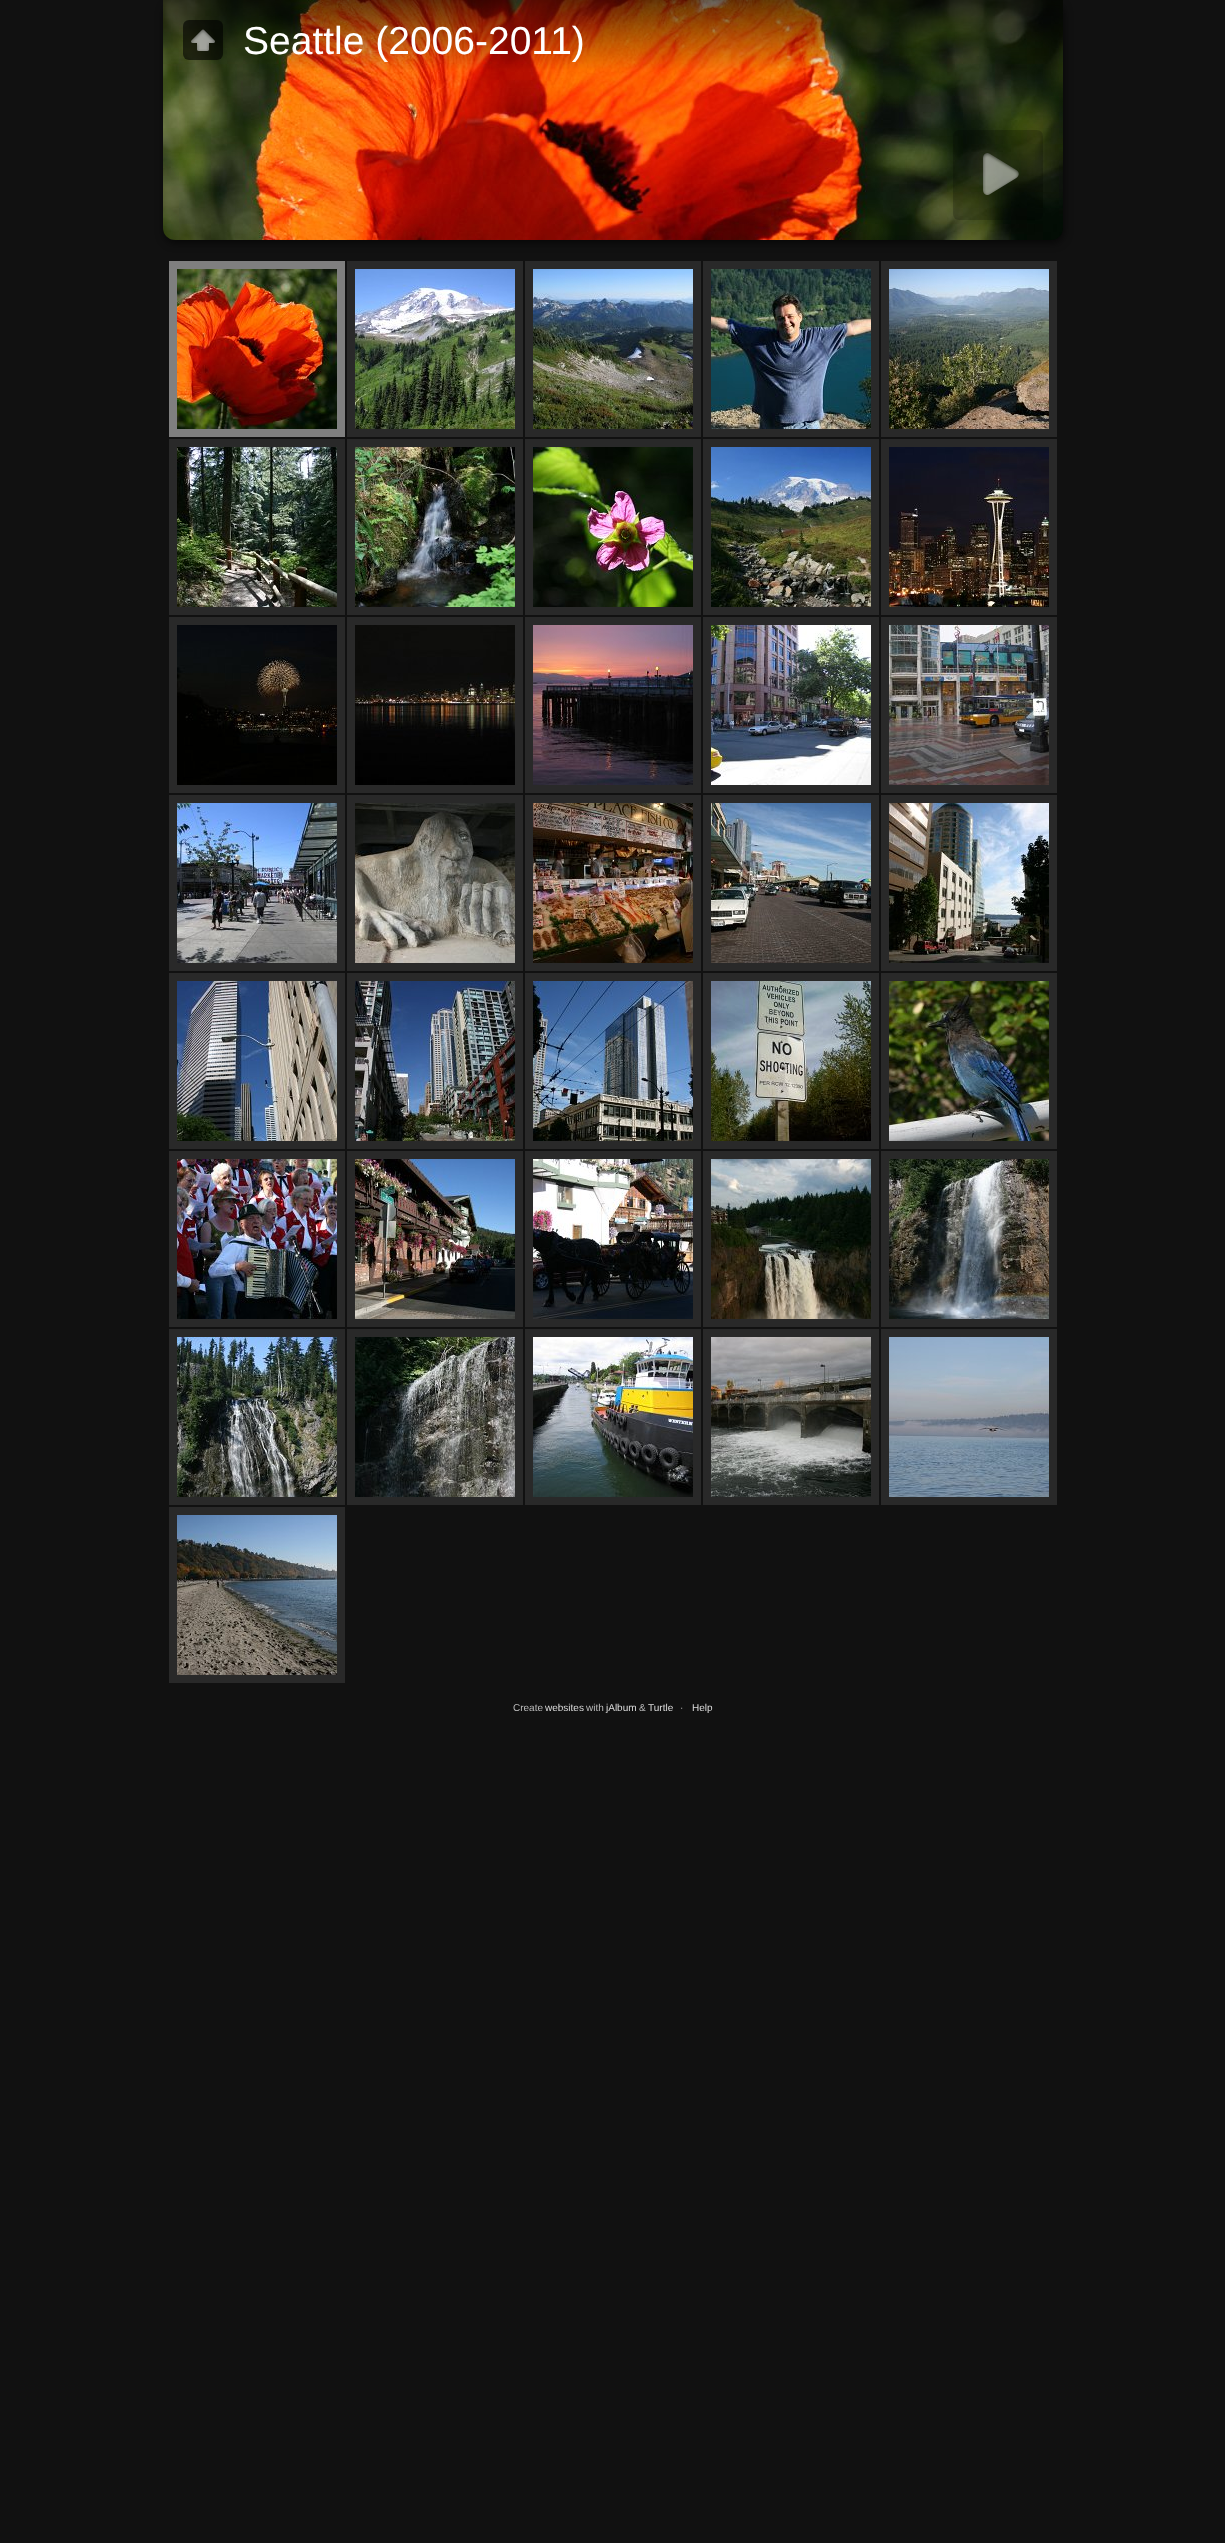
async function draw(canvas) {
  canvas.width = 1225
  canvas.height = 2543
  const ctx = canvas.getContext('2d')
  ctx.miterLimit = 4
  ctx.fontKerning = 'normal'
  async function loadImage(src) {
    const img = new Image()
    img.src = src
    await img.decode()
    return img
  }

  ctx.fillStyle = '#111'
  ctx.fillRect(0, 0, 1225, 2543)
  ctx.fillStyle = '#00000099'
  ctx.filter = 'blur(4px)'
  ctx.beginPath()
  ctx.roundRect(164, 3, 900, 240, 12)
  ctx.fill()
  ctx.filter = 'none'
  ctx.drawImage(await loadImage('image0.png'), 163, 0, 900, 240)
  ctx.beginPath()
  ctx.roundRect(183, 20, 40, 40, 6)
  ctx.fill()
  ctx.drawImage(await loadImage('image1.png'), 191, 29, 24, 22)
  ctx.font = '39px Liberation Sans'
  ctx.fillStyle = '#fff'
  ctx.fillText('Seattle (2006-2011)', 243, 54)
  ctx.fillStyle = '#00000033'
  ctx.beginPath()
  ctx.roundRect(953, 130, 90, 90, 6)
  ctx.fill()
  ctx.drawImage(await loadImage('image2.png'), 983, 153, 36, 42)
  ctx.fillStyle = '#7f7f7f'
  ctx.fillRect(169, 261, 176, 176)
  ctx.drawImage(await loadImage('image3.png'), 177, 269, 160, 160)
  ctx.fillStyle = '#292929'
  ctx.fillRect(347, 261, 176, 176)
  ctx.drawImage(await loadImage('image4.png'), 355, 269, 160, 160)
  ctx.fillRect(525, 261, 176, 176)
  ctx.drawImage(await loadImage('image5.png'), 533, 269, 160, 160)
  ctx.fillRect(703, 261, 176, 176)
  ctx.drawImage(await loadImage('image6.png'), 711, 269, 160, 160)
  ctx.fillRect(881, 261, 176, 176)
  ctx.drawImage(await loadImage('image7.png'), 889, 269, 160, 160)
  ctx.fillRect(169, 439, 176, 176)
  ctx.drawImage(await loadImage('image8.png'), 177, 447, 160, 160)
  ctx.fillRect(347, 439, 176, 176)
  ctx.drawImage(await loadImage('image9.png'), 355, 447, 160, 160)
  ctx.fillRect(525, 439, 176, 176)
  ctx.drawImage(await loadImage('image10.png'), 533, 447, 160, 160)
  ctx.fillRect(703, 439, 176, 176)
  ctx.drawImage(await loadImage('image11.png'), 711, 447, 160, 160)
  ctx.fillRect(881, 439, 176, 176)
  ctx.drawImage(await loadImage('image12.png'), 889, 447, 160, 160)
  ctx.fillRect(169, 617, 176, 176)
  ctx.drawImage(await loadImage('image13.png'), 177, 625, 160, 160)
  ctx.fillRect(347, 617, 176, 176)
  ctx.drawImage(await loadImage('image14.png'), 355, 625, 160, 160)
  ctx.fillRect(525, 617, 176, 176)
  ctx.drawImage(await loadImage('image15.png'), 533, 625, 160, 160)
  ctx.fillRect(703, 617, 176, 176)
  ctx.drawImage(await loadImage('image16.png'), 711, 625, 160, 160)
  ctx.fillRect(881, 617, 176, 176)
  ctx.drawImage(await loadImage('image17.png'), 889, 625, 160, 160)
  ctx.fillRect(169, 795, 176, 176)
  ctx.drawImage(await loadImage('image18.png'), 177, 803, 160, 160)
  ctx.fillRect(347, 795, 176, 176)
  ctx.drawImage(await loadImage('image19.png'), 355, 803, 160, 160)
  ctx.fillRect(525, 795, 176, 176)
  ctx.drawImage(await loadImage('image20.png'), 533, 803, 160, 160)
  ctx.fillRect(703, 795, 176, 176)
  ctx.drawImage(await loadImage('image21.png'), 711, 803, 160, 160)
  ctx.fillRect(881, 795, 176, 176)
  ctx.drawImage(await loadImage('image22.png'), 889, 803, 160, 160)
  ctx.fillRect(169, 973, 176, 176)
  ctx.drawImage(await loadImage('image23.png'), 177, 981, 160, 160)
  ctx.fillRect(347, 973, 176, 176)
  ctx.drawImage(await loadImage('image24.png'), 355, 981, 160, 160)
  ctx.fillRect(525, 973, 176, 176)
  ctx.drawImage(await loadImage('image25.png'), 533, 981, 160, 160)
  ctx.fillRect(703, 973, 176, 176)
  ctx.drawImage(await loadImage('image26.png'), 711, 981, 160, 160)
  ctx.fillRect(881, 973, 176, 176)
  ctx.drawImage(await loadImage('image27.png'), 889, 981, 160, 160)
  ctx.fillRect(169, 1151, 176, 176)
  ctx.drawImage(await loadImage('image28.png'), 177, 1159, 160, 160)
  ctx.fillRect(347, 1151, 176, 176)
  ctx.drawImage(await loadImage('image29.png'), 355, 1159, 160, 160)
  ctx.fillRect(525, 1151, 176, 176)
  ctx.drawImage(await loadImage('image30.png'), 533, 1159, 160, 160)
  ctx.fillRect(703, 1151, 176, 176)
  ctx.drawImage(await loadImage('image31.png'), 711, 1159, 160, 160)
  ctx.fillRect(881, 1151, 176, 176)
  ctx.drawImage(await loadImage('image32.png'), 889, 1159, 160, 160)
  ctx.fillRect(169, 1329, 176, 176)
  ctx.drawImage(await loadImage('image33.png'), 177, 1337, 160, 160)
  ctx.fillRect(347, 1329, 176, 176)
  ctx.drawImage(await loadImage('image34.png'), 355, 1337, 160, 160)
  ctx.fillRect(525, 1329, 176, 176)
  ctx.drawImage(await loadImage('image35.png'), 533, 1337, 160, 160)
  ctx.fillRect(703, 1329, 176, 176)
  ctx.drawImage(await loadImage('image36.png'), 711, 1337, 160, 160)
  ctx.fillRect(881, 1329, 176, 176)
  ctx.drawImage(await loadImage('image37.png'), 889, 1337, 160, 160)
  ctx.fillRect(169, 1507, 176, 176)
  ctx.drawImage(await loadImage('image38.png'), 177, 1515, 160, 160)
  ctx.font = '10px Liberation Sans'
  ctx.fillStyle = '#bbb'
  ctx.fillText('Create', 513, 1711)
  ctx.fillStyle = '#ddd'
  ctx.fillText('websites', 545, 1711)
  ctx.fillStyle = '#bbb'
  ctx.fillText('with', 586, 1711)
  ctx.fillStyle = '#ddd'
  ctx.fillText('jAlbum', 606, 1711)
  ctx.fillStyle = '#bbb'
  ctx.fillText('&', 639, 1711)
  ctx.fillStyle = '#ddd'
  ctx.fillText('Turtle', 648, 1711)
  ctx.fillStyle = '#bbb'
  ctx.fillText('·', 680, 1711)
  ctx.fillStyle = '#ddd'
  ctx.fillText('Help', 692, 1711)
}

draw(document.querySelector('canvas'))
